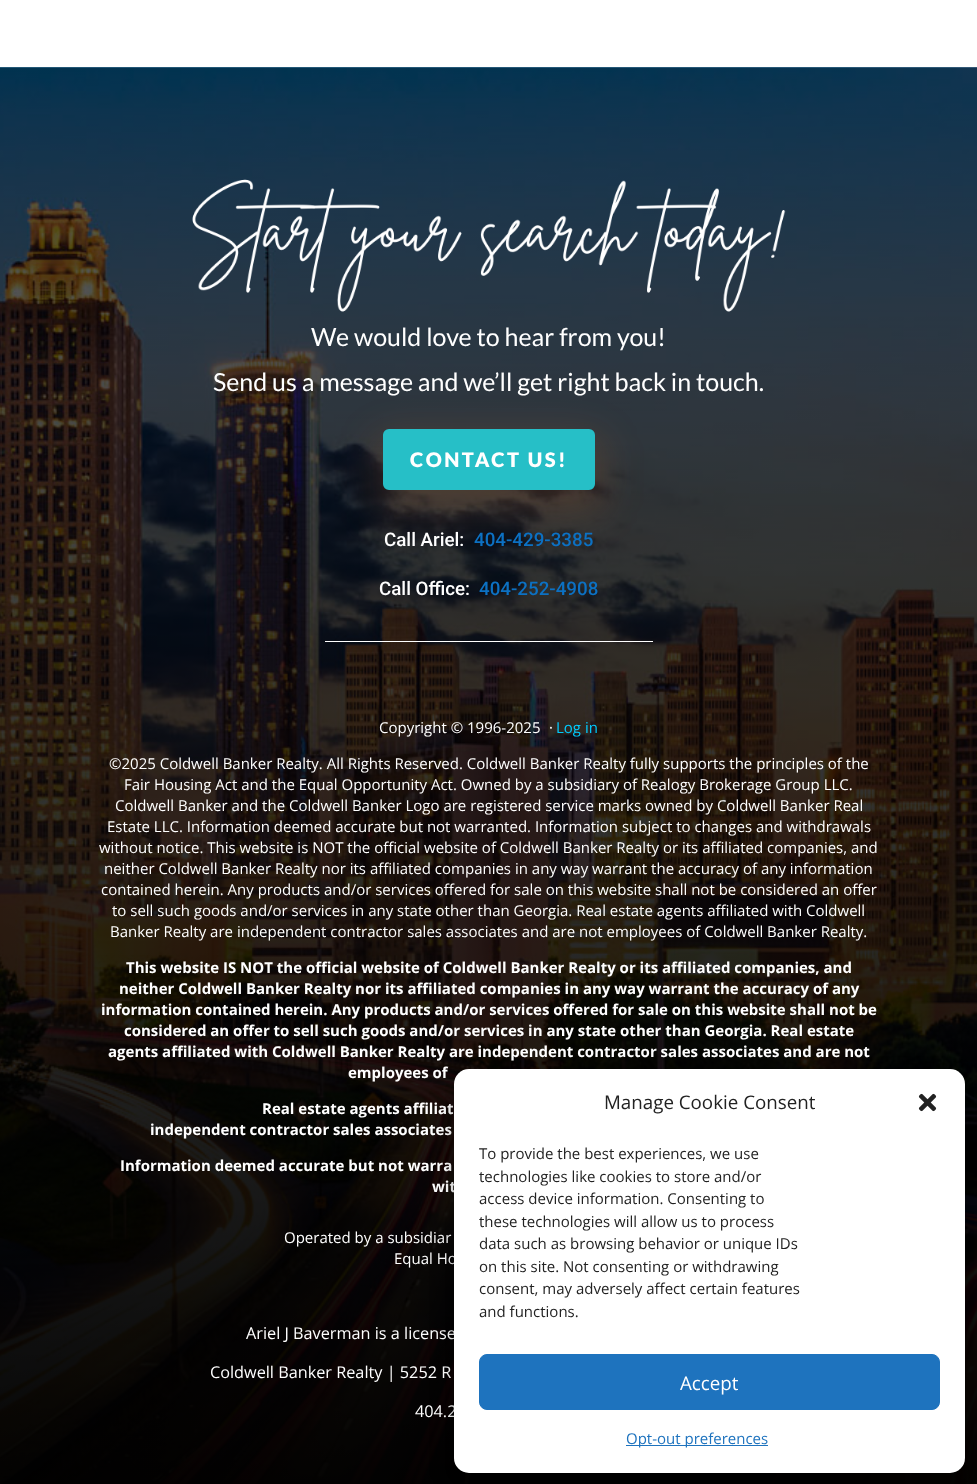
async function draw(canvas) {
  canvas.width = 977
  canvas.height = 1484
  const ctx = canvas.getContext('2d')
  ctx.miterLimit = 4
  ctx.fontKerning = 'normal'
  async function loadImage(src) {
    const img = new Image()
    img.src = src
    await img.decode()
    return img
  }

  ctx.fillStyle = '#fff'
  ctx.fillRect(0, 0, 977, 1484)
  ctx.drawImage(await loadImage('image0.png'), 0, 67, 977, 1417)
  ctx.drawImage(await loadImage('image1.png'), 192, 179, 594, 133)
  ctx.font = '25px Lato'
  ctx.fillText('We would love to hear from you!', 311, 346)
  ctx.fillText('Send us a message and we’ll get right back in touch.', 213, 391)
  ctx.fillStyle = '#fa7f2826'
  ctx.filter = 'blur(19px)'
  ctx.beginPath()
  ctx.roundRect(373, 434, 232, 81, 16)
  ctx.fill()
  ctx.filter = 'none'
  ctx.fillStyle = '#26bfc7'
  ctx.beginPath()
  ctx.roundRect(387, 433, 204, 53, 2)
  ctx.fill()
  ctx.strokeStyle = '#26bfc7'
  ctx.lineWidth = 8
  ctx.stroke()
  ctx.letterSpacing = '2.5px'
  ctx.font = '900 20px Lato'
  ctx.fillStyle = '#fff'
  ctx.fillText('CONTACT US!', 410, 467)
  ctx.letterSpacing = '0px'
  ctx.font = '500 18.75px Roboto'
  ctx.fillText('Call Ariel:', 384, 546)
  ctx.fillStyle = '#0c71c3'
  ctx.fillText('404-429-3385', 474, 546)
  ctx.fillStyle = '#fff'
  ctx.fillText('Call Office:', 379, 595)
  ctx.fillStyle = '#0c71c3'
  ctx.fillText('404-252-4908', 479, 595)
  ctx.fillStyle = '#fff'
  ctx.fillRect(325, 641, 328, 1)
  ctx.font = '15px Open Sans'
  ctx.fillText('Copyright © 1996-2025', 379, 733)
  ctx.fillText('·', 549, 733)
  ctx.fillStyle = '#0cf'
  ctx.fillText('Log in', 556, 733)
  ctx.fillStyle = '#fff'
  ctx.fillText('©2025 Coldwell Banker Realty. All Rights Reserved. Coldwell Banker Realty fully supports the principles of the', 109, 769)
  ctx.fillText('Fair Housing Act and the Equal Opportunity Act. Owned by a subsidiary of Realogy Brokerage Group LLC.', 124, 790)
  ctx.fillText('Coldwell Banker and the Coldwell Banker Logo are registered service marks owned by Coldwell Banker Real', 115, 811)
  ctx.fillText('Estate LLC. Information deemed accurate but not warranted. Information subject to changes and withdrawals', 107, 832)
  ctx.fillText('without notice. This website is NOT the official website of Coldwell Banker Realty or its affiliated companies, and', 99, 853)
  ctx.fillText('neither Coldwell Banker Realty nor its affiliated companies in any way warrant the accuracy of any information', 104, 874)
  ctx.fillText('contained herein. Any products and/or services offered for sale on this website shall not be considered an offer', 101, 895)
  ctx.fillText('to sell such goods and/or services in any state other than Georgia. Real estate agents affiliated with Coldwell', 112, 916)
  ctx.fillText('Banker Realty are independent contractor sales associates and are not employees of Coldwell Banker Realty.', 110, 937)
  ctx.font = 'bold 15px Open Sans'
  ctx.fillText('This website IS NOT the official website of Coldwell Banker Realty or its affiliated companies, and', 126, 973)
  ctx.fillText('neither Coldwell Banker Realty nor its affiliated companies in any way warrant the accuracy of any', 119, 994)
  ctx.fillText('information contained herein. Any products and/or services offered for sale on this website shall not be', 101, 1015)
  ctx.fillText('considered an offer to sell such goods and/or services in any state other than Georgia. Real estate', 124, 1036)
  ctx.fillText('agents affiliated with Coldwell Banker Realty are independent contractor sales associates and are not', 108, 1057)
  ctx.fillText('employees of', 348, 1078)
  ctx.fillText('Real estate agents affiliat', 262, 1114)
  ctx.fillText('independent contractor sales associates', 150, 1135)
  ctx.fillText('Information deemed accurate but not warra', 120, 1171)
  ctx.fillText('wit', 432, 1192)
  ctx.font = '15px Open Sans'
  ctx.fillText('Operated by a subsidiar', 284, 1243)
  ctx.fillText('Equal Ho', 394, 1264)
  ctx.font = '16.25px Open Sans'
  ctx.fillText('Ariel J Baverman is a license', 246, 1339)
  ctx.fillText('Coldwell Banker Realty | 5252 R', 210, 1378)
  ctx.fillText('404.2', 415, 1417)
  ctx.fillStyle = '#0000003b'
  ctx.filter = 'blur(4px)'
  ctx.beginPath()
  ctx.roundRect(454, 1076, 511, 404, 15)
  ctx.fill()
  ctx.filter = 'none'
  ctx.fillStyle = '#00000030'
  ctx.filter = 'blur(12.5px)'
  ctx.beginPath()
  ctx.roundRect(454, 1081, 511, 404, 15)
  ctx.fill()
  ctx.filter = 'none'
  ctx.fillStyle = '#fff'
  ctx.beginPath()
  ctx.roundRect(454, 1069, 511, 404, 15)
  ctx.fill()
  ctx.font = '18.75px Open Sans'
  ctx.fillStyle = '#222'
  ctx.fillText('Manage Cookie Consent', 604, 1109)
  ctx.drawImage(await loadImage('image2.png'), 918, 1093, 19, 19)
  ctx.font = '15px Open Sans'
  ctx.fillText('To provide the best experiences, we use', 479, 1159)
  ctx.fillText('technologies like cookies to store and/or', 479, 1182)
  ctx.fillText('access device information. Consenting to', 479, 1204)
  ctx.fillText('these technologies will allow us to process', 479, 1227)
  ctx.fillText('data such as browsing behavior or unique IDs', 479, 1249)
  ctx.fillText('on this site. Not consenting or withdrawing', 479, 1272)
  ctx.fillText('consent, may adversely affect certain features', 479, 1294)
  ctx.fillText('and functions.', 479, 1317)
  ctx.fillStyle = '#1e73be'
  ctx.beginPath()
  ctx.roundRect(479.5, 1354.5, 460, 55, 7.5)
  ctx.fill()
  ctx.strokeStyle = '#1e73be'
  ctx.lineWidth = 1
  ctx.stroke()
  ctx.font = '18.75px Open Sans'
  ctx.fillStyle = '#fff'
  ctx.fillText('Accept', 680, 1390)
  ctx.fillStyle = '#1e73be'
  ctx.fillRect(626, 1445, 142, 1)
  ctx.font = '15px Open Sans'
  ctx.fillText('Opt-out preferences', 626, 1444)
}

draw(document.querySelector('canvas'))
